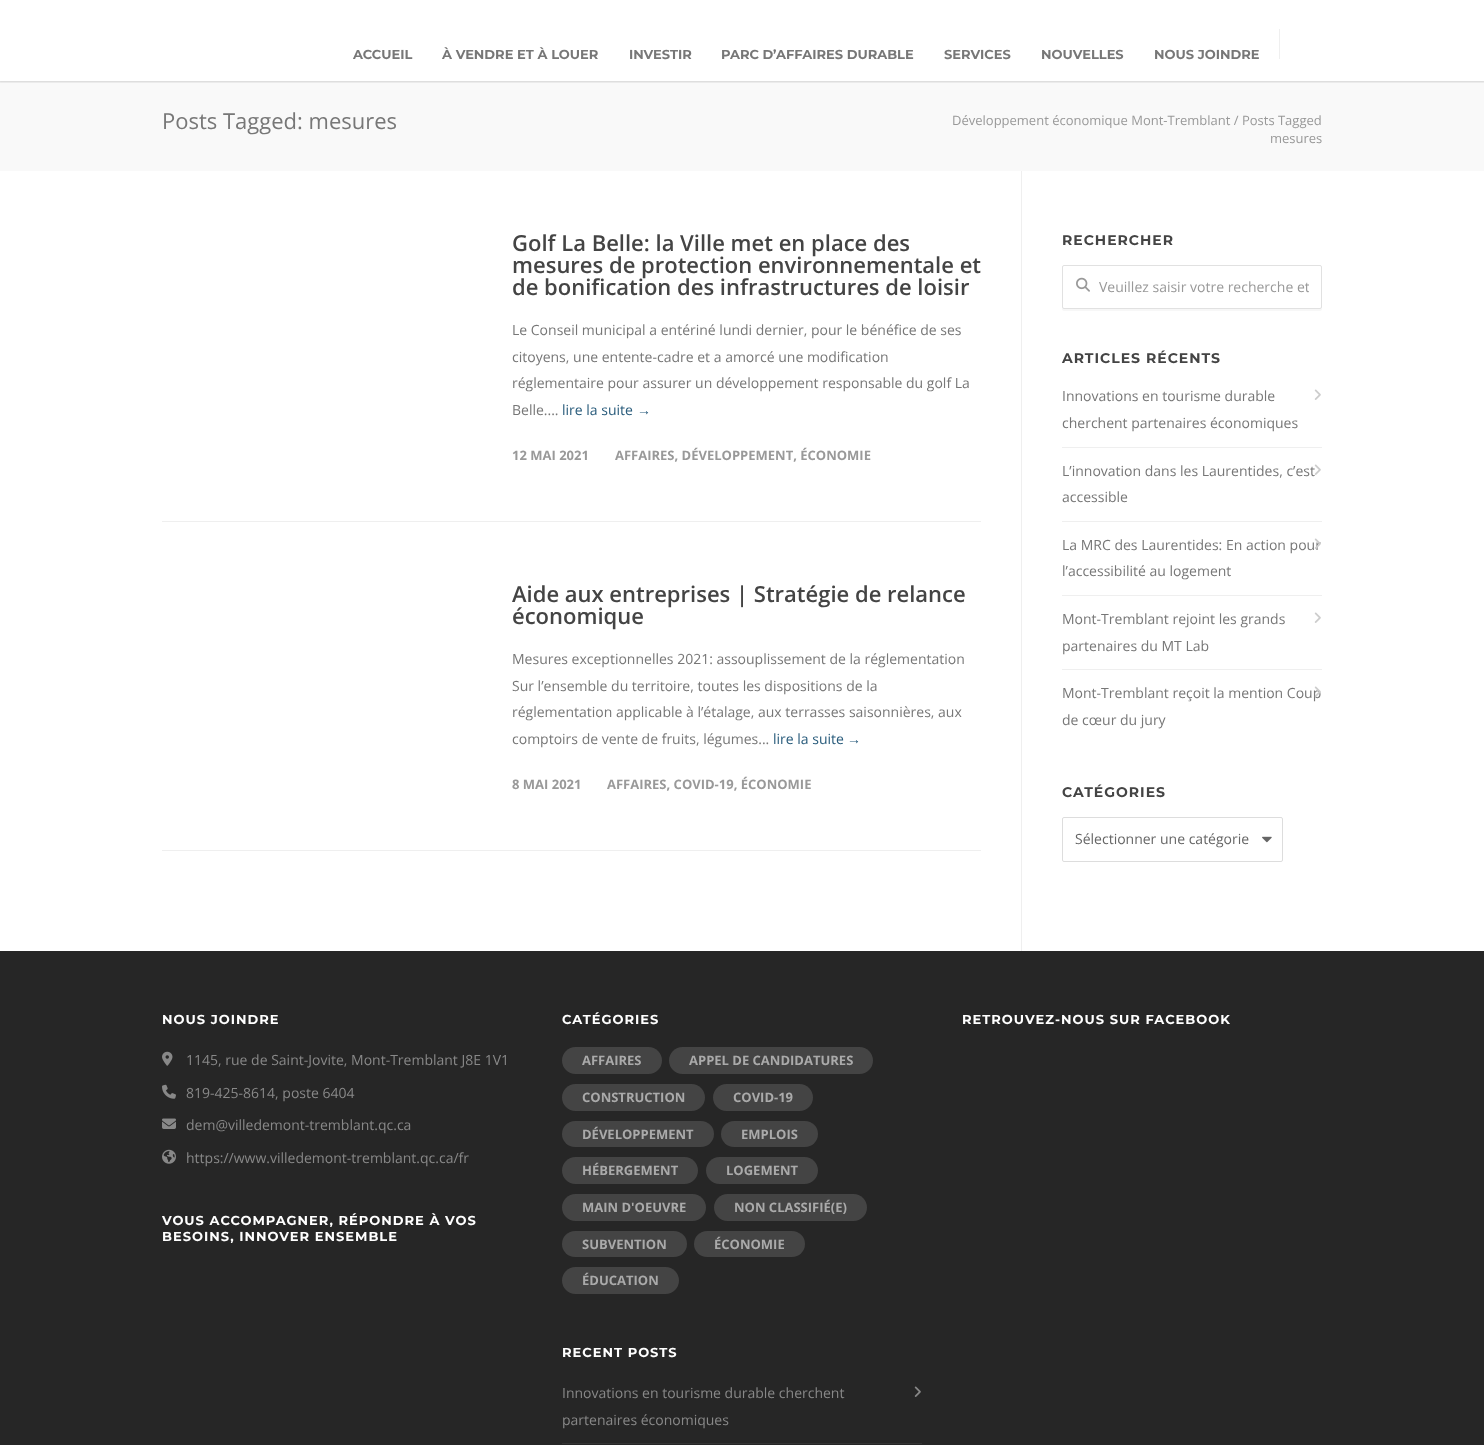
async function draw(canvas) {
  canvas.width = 1484
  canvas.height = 1445
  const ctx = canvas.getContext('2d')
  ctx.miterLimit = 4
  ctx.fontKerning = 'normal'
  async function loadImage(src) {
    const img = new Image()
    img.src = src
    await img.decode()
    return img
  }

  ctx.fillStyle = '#fff'
  ctx.fillRect(0, 0, 1484, 1445)
  ctx.fillStyle = '#f9f9f9'
  ctx.fillRect(0, 81, 1484, 90)
  ctx.save()
  ctx.beginPath()
  ctx.rect(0, 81, 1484, 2)
  ctx.clip()
  ctx.fillStyle = '#00000029'
  ctx.filter = 'blur(1px)'
  ctx.beginPath()
  ctx.rect(-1, -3, 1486, 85)
  ctx.fill()
  ctx.filter = 'none'
  ctx.restore()
  ctx.font = 'bold 13px Montserrat'
  ctx.fillStyle = '#777'
  ctx.fillText('ACCUEIL', 353, 59)
  ctx.fillText('À VENDRE ET À LOUER', 442, 59)
  ctx.fillText('INVESTIR', 629, 59)
  ctx.fillText('PARC D’AFFAIRES DURABLE', 721, 59)
  ctx.fillText('SERVICES', 944, 59)
  ctx.fillText('NOUVELLES', 1041, 59)
  ctx.fillText('NOUS JOINDRE', 1154, 59)
  ctx.fillStyle = '#efefef'
  ctx.fillRect(1279, 29, 1, 30)
  ctx.font = '22px Open Sans'
  ctx.fillStyle = '#777'
  ctx.fillText('Posts Tagged: mesures', 162, 129)
  ctx.font = '13px Open Sans'
  ctx.fillStyle = '#999'
  ctx.fillText('Développement économique Mont-Tremblant / Posts Tagged', 952, 125)
  ctx.fillText('mesures', 1270, 143)
  ctx.fillStyle = '#efefef'
  ctx.fillRect(1021, 171, 1, 780)
  ctx.fillRect(162, 521, 819, 1)
  ctx.font = '600 22px Open Sans'
  ctx.fillStyle = '#444'
  ctx.fillText('Golf La Belle: la Ville met en place des', 512, 251)
  ctx.fillText('mesures de protection environnementale et', 512, 273)
  ctx.fillText('de bonification des infrastructures de loisir', 512, 295)
  ctx.font = '14px Open Sans'
  ctx.fillStyle = '#777'
  ctx.fillText('Le Conseil municipal a entériné lundi dernier, pour le bénéfice de ses', 512, 335)
  ctx.fillText('citoyens, une entente-cadre et a amorcé une modification', 512, 362)
  ctx.fillText('réglementaire pour assurer un développement responsable du golf La', 512, 388)
  ctx.fillText('Belle....', 512, 415)
  ctx.fillStyle = '#285b7b'
  ctx.fillText('lire la suite', 562, 415)
  ctx.font = '14px Liberation Sans'
  ctx.fillText('→', 637, 415)
  ctx.font = 'bold 13px Open Sans'
  ctx.fillStyle = '#999'
  ctx.fillText('12 MAI 2021', 512, 460)
  ctx.fillText('AFFAIRES, DÉVELOPPEMENT, ÉCONOMIE', 615, 460)
  ctx.fillStyle = '#efefef'
  ctx.fillRect(162, 850, 819, 1)
  ctx.font = '600 22px Open Sans'
  ctx.fillStyle = '#444'
  ctx.fillText('Aide aux entreprises | Stratégie de relance', 512, 602)
  ctx.fillText('économique', 512, 624)
  ctx.font = '14px Open Sans'
  ctx.fillStyle = '#777'
  ctx.fillText('Mesures exceptionnelles 2021: assouplissement de la réglementation', 512, 664)
  ctx.fillText('Sur l’ensemble du territoire, toutes les dispositions de la', 512, 691)
  ctx.fillText('réglementation applicable à l’étalage, aux terrasses saisonnières, aux', 512, 717)
  ctx.fillText('comptoirs de vente de fruits, légumes...', 512, 744)
  ctx.fillStyle = '#285b7b'
  ctx.fillText('lire la suite', 773, 744)
  ctx.font = '14px Liberation Sans'
  ctx.fillText('→', 847, 744)
  ctx.font = 'bold 13px Open Sans'
  ctx.fillStyle = '#999'
  ctx.fillText('8 MAI 2021', 512, 789)
  ctx.fillText('AFFAIRES, COVID-19, ÉCONOMIE', 607, 789)
  ctx.letterSpacing = '1px'
  ctx.font = 'bold 14px Montserrat'
  ctx.fillStyle = '#444'
  ctx.fillText('RECHERCHER', 1062, 245)
  ctx.fillStyle = '#f7f7f7'
  ctx.beginPath()
  ctx.moveTo(1062, 307)
  ctx.lineTo(1062, 309)
  ctx.bezierCurveTo(1062, 310, 1063, 311, 1064, 311)
  ctx.lineTo(1320, 311)
  ctx.bezierCurveTo(1321, 311, 1322, 310, 1322, 309)
  ctx.lineTo(1322, 307)
  ctx.bezierCurveTo(1322, 308, 1321, 309, 1320, 309)
  ctx.lineTo(1064, 309)
  ctx.bezierCurveTo(1063, 309, 1062, 308, 1062, 307)
  ctx.closePath()
  ctx.fill()
  ctx.beginPath()
  ctx.roundRect(1062.5, 265.5, 259, 43, 1.5)
  ctx.strokeStyle = '#e1e1e1'
  ctx.stroke()
  ctx.drawImage(await loadImage('image0.png'), 1076, 277, 14, 15)
  ctx.save()
  ctx.beginPath()
  ctx.rect(1099, 276, 210, 22)
  ctx.clip()
  ctx.letterSpacing = '0px'
  ctx.font = '14px Open Sans'
  ctx.fillStyle = '#999'
  ctx.fillText('Veuillez saisir votre recherche et', 1099, 292)
  ctx.restore()
  ctx.fillStyle = '#444'
  ctx.fillText('ARTICLES RÉCENTS', 1062, 363)
  ctx.fillStyle = '#efefef'
  ctx.fillRect(1062, 447, 260, 1)
  ctx.letterSpacing = '0px'
  ctx.font = '14px Open Sans'
  ctx.fillStyle = '#777'
  ctx.fillText('Innovations en tourisme durable', 1062, 401)
  ctx.fillText('cherchent partenaires économiques', 1062, 428)
  ctx.drawImage(await loadImage('image1.png'), 1314, 389, 7, 11)
  ctx.fillStyle = '#efefef'
  ctx.fillRect(1062, 521, 260, 1)
  ctx.fillStyle = '#777'
  ctx.fillText('L’innovation dans les Laurentides, c’est', 1062, 476)
  ctx.fillText('accessible', 1062, 502)
  ctx.drawImage(await loadImage('image2.png'), 1314, 464, 7, 11)
  ctx.fillStyle = '#efefef'
  ctx.fillRect(1062, 595, 260, 1)
  ctx.fillStyle = '#777'
  ctx.fillText('La MRC des Laurentides: En action pour', 1062, 550)
  ctx.drawImage(await loadImage('image3.png'), 1314, 538, 7, 11)
  ctx.fillText('l’accessibilité au logement', 1062, 576)
  ctx.fillStyle = '#efefef'
  ctx.fillRect(1062, 669, 260, 1)
  ctx.fillStyle = '#777'
  ctx.fillText('Mont-Tremblant rejoint les grands', 1062, 624)
  ctx.fillText('partenaires du MT Lab', 1062, 651)
  ctx.drawImage(await loadImage('image1.png'), 1314, 612, 7, 11)
  ctx.fillText('Mont-Tremblant reçoit la mention Coup', 1062, 698)
  ctx.drawImage(await loadImage('image4.png'), 1314, 686, 7, 11)
  ctx.fillText('de cœur du jury', 1062, 725)
  ctx.letterSpacing = '1px'
  ctx.font = 'bold 14px Montserrat'
  ctx.fillStyle = '#444'
  ctx.fillText('CATÉGORIES', 1062, 797)
  ctx.drawImage(await loadImage('image5.png'), 1262, 836, 10, 7)
  ctx.beginPath()
  ctx.roundRect(1062.5, 817.5, 220, 44, 1.5)
  ctx.strokeStyle = '#ddd'
  ctx.stroke()
  ctx.letterSpacing = '0px'
  ctx.font = '14px Open Sans'
  ctx.fillStyle = '#666'
  ctx.fillText('Sélectionner une catégorie', 1075, 844)
  ctx.fillStyle = '#262626'
  ctx.fillRect(0, 951, 1484, 494)
  ctx.letterSpacing = '1px'
  ctx.font = 'bold 13px Montserrat'
  ctx.fillStyle = '#fff'
  ctx.fillText('NOUS JOINDRE', 162, 1024)
  ctx.drawImage(await loadImage('image6.png'), 162, 1051, 11, 15)
  ctx.letterSpacing = '0px'
  ctx.font = '14px Open Sans'
  ctx.fillStyle = '#888'
  ctx.fillText('1145, rue de Saint-Jovite, Mont-Tremblant J8E 1V1', 186, 1065)
  ctx.drawImage(await loadImage('image7.png'), 162, 1084, 14, 15)
  ctx.fillText('819-425-8614, poste 6404', 186, 1098)
  ctx.drawImage(await loadImage('image8.png'), 162, 1118, 14, 11)
  ctx.fillText('dem@villedemont-tremblant.qc.ca', 186, 1130)
  ctx.drawImage(await loadImage('image9.png'), 162, 1149, 14, 15)
  ctx.fillText('https://www.villedemont-tremblant.qc.ca/fr', 186, 1163)
  ctx.letterSpacing = '1px'
  ctx.font = 'bold 13px Montserrat'
  ctx.fillStyle = '#fff'
  ctx.fillText('VOUS ACCOMPAGNER, RÉPONDRE À VOS', 162, 1225)
  ctx.fillText('BESOINS, INNOVER ENSEMBLE', 162, 1241)
  ctx.fillText('CATÉGORIES', 562, 1024)
  ctx.fillStyle = '#444'
  ctx.beginPath()
  ctx.roundRect(562, 1047, 100, 27, 13.5)
  ctx.fill()
  ctx.letterSpacing = '0px'
  ctx.font = 'bold 13px Open Sans'
  ctx.fillStyle = '#aaa'
  ctx.fillText('AFFAIRES', 582, 1065)
  ctx.fillStyle = '#444'
  ctx.beginPath()
  ctx.roundRect(669, 1047, 204, 27, 13.5)
  ctx.fill()
  ctx.fillStyle = '#aaa'
  ctx.fillText('APPEL DE CANDIDATURES', 689, 1065)
  ctx.fillStyle = '#444'
  ctx.beginPath()
  ctx.roundRect(562, 1084, 143, 27, 13.5)
  ctx.fill()
  ctx.fillStyle = '#aaa'
  ctx.fillText('CONSTRUCTION', 582, 1102)
  ctx.fillStyle = '#444'
  ctx.beginPath()
  ctx.roundRect(713, 1084, 100, 27, 13.5)
  ctx.fill()
  ctx.fillStyle = '#aaa'
  ctx.fillText('COVID-19', 733, 1102)
  ctx.fillStyle = '#444'
  ctx.beginPath()
  ctx.roundRect(562, 1121, 152, 26, 13)
  ctx.fill()
  ctx.fillStyle = '#aaa'
  ctx.fillText('DÉVELOPPEMENT', 582, 1139)
  ctx.fillStyle = '#444'
  ctx.beginPath()
  ctx.roundRect(721, 1121, 97, 26, 13)
  ctx.fill()
  ctx.fillStyle = '#aaa'
  ctx.fillText('EMPLOIS', 741, 1139)
  ctx.fillStyle = '#444'
  ctx.beginPath()
  ctx.roundRect(562, 1157, 136, 27, 13.5)
  ctx.fill()
  ctx.fillStyle = '#aaa'
  ctx.fillText('HÉBERGEMENT', 582, 1175)
  ctx.fillStyle = '#444'
  ctx.beginPath()
  ctx.roundRect(706, 1157, 112, 27, 13.5)
  ctx.fill()
  ctx.fillStyle = '#aaa'
  ctx.fillText('LOGEMENT', 726, 1175)
  ctx.fillStyle = '#444'
  ctx.beginPath()
  ctx.roundRect(562, 1194, 144, 27, 13.5)
  ctx.fill()
  ctx.fillStyle = '#aaa'
  ctx.fillText('MAIN D\'OEUVRE', 582, 1212)
  ctx.fillStyle = '#444'
  ctx.beginPath()
  ctx.roundRect(714, 1194, 153, 27, 13.5)
  ctx.fill()
  ctx.fillStyle = '#aaa'
  ctx.fillText('NON CLASSIFIÉ(E)', 734, 1212)
  ctx.fillStyle = '#444'
  ctx.beginPath()
  ctx.roundRect(562, 1231, 125, 26, 13)
  ctx.fill()
  ctx.fillStyle = '#aaa'
  ctx.fillText('SUBVENTION', 582, 1249)
  ctx.fillStyle = '#444'
  ctx.beginPath()
  ctx.roundRect(694, 1231, 111, 26, 13)
  ctx.fill()
  ctx.fillStyle = '#aaa'
  ctx.fillText('ÉCONOMIE', 714, 1249)
  ctx.fillStyle = '#444'
  ctx.beginPath()
  ctx.roundRect(562, 1267, 117, 27, 13.5)
  ctx.fill()
  ctx.fillStyle = '#aaa'
  ctx.fillText('ÉDUCATION', 582, 1285)
  ctx.letterSpacing = '1px'
  ctx.font = 'bold 13px Montserrat'
  ctx.fillStyle = '#fff'
  ctx.fillText('RECENT POSTS', 562, 1357)
  ctx.fillStyle = '#333'
  ctx.fillRect(562, 1443, 360, 1)
  ctx.letterSpacing = '0px'
  ctx.font = '14px Open Sans'
  ctx.fillStyle = '#888'
  ctx.fillText('Innovations en tourisme durable cherchent', 562, 1398)
  ctx.fillText('partenaires économiques', 562, 1425)
  ctx.drawImage(await loadImage('image10.png'), 914, 1386, 7, 11)
  ctx.letterSpacing = '1px'
  ctx.font = 'bold 13px Montserrat'
  ctx.fillStyle = '#fff'
  ctx.fillText('RETROUVEZ-NOUS SUR FACEBOOK', 962, 1024)
}

draw(document.querySelector('canvas'))
